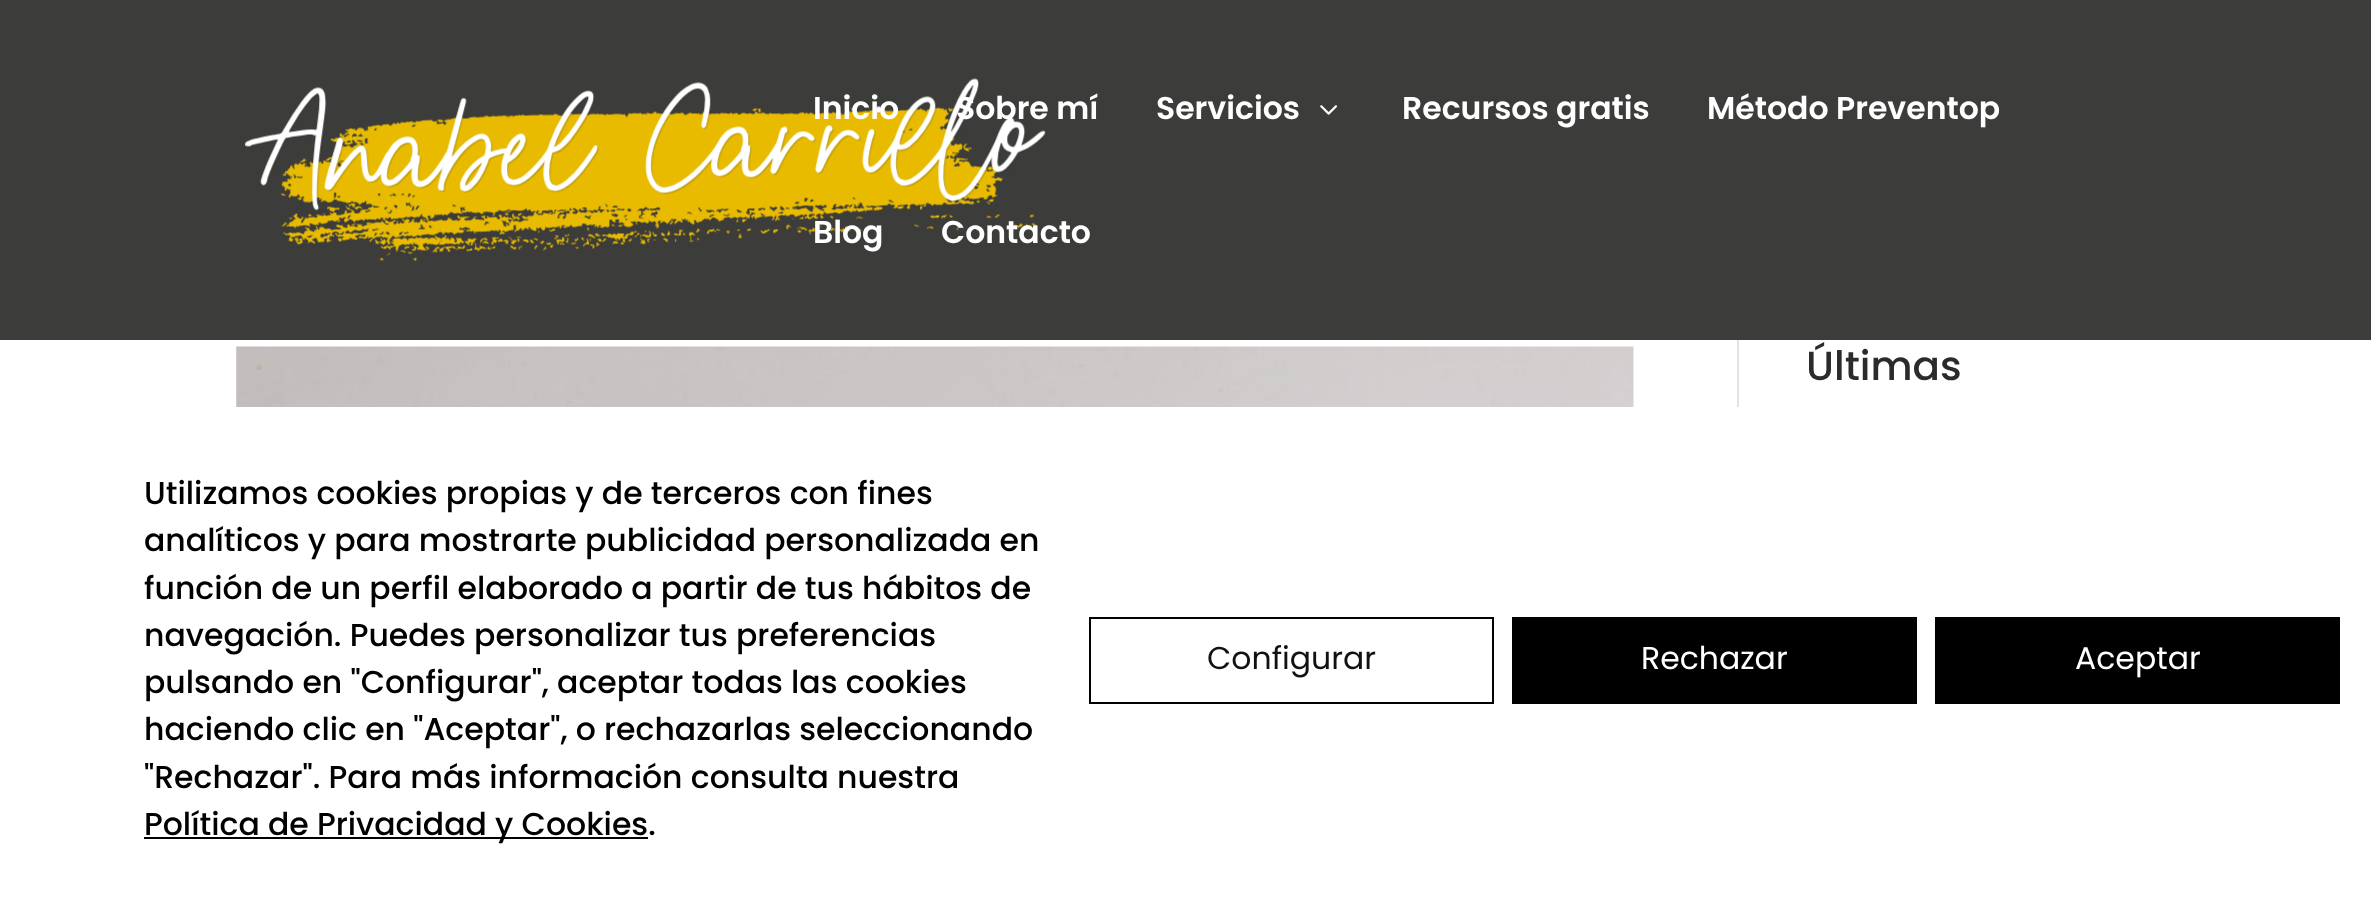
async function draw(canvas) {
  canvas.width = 2371
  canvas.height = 910
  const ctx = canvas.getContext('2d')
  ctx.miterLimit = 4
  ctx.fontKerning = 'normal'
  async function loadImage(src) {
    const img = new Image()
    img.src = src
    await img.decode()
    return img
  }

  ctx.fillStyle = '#fff'
  ctx.fillRect(0, 0, 2371, 910)
  ctx.fillStyle = '#3c3c3b'
  ctx.fillRect(0, 0, 2371, 340)
  ctx.drawImage(await loadImage('image0.png'), 245, 78, 801, 184)
  ctx.font = '600 31.5px Poppins'
  ctx.fillStyle = '#fff'
  ctx.fillText('Inicio', 813, 119)
  ctx.fillText('Sobre mí', 956, 119)
  ctx.fillText('Servicios', 1156, 119)
  ctx.drawImage(await loadImage('image1.png'), 1320, 105, 17, 10)
  ctx.fillText('Recursos gratis', 1402, 119)
  ctx.fillText('Método Preventop', 1707, 119)
  ctx.fillText('Blog', 813, 243)
  ctx.fillText('Contacto', 941, 243)
  ctx.fillStyle = '#e2e2e2'
  ctx.fillRect(1737, 340, 2, 67)
  ctx.drawImage(await loadImage('image2.png'), 236, 346, 1398, 61)
  ctx.font = '500 40.5px Poppins'
  ctx.fillStyle = '#2b2b2b'
  ctx.fillText('Últimas', 1806, 380)
  ctx.font = '500 31.5px Poppins'
  ctx.fillStyle = '#000'
  ctx.fillText('Utilizamos cookies propias y de terceros con fines', 144, 504)
  ctx.fillText('analíticos y para mostrarte publicidad personalizada en', 144, 551)
  ctx.fillText('función de un perfil elaborado a partir de tus hábitos de', 144, 599)
  ctx.fillText('navegación. Puedes personalizar tus preferencias', 144, 646)
  ctx.fillText('pulsando en "Configurar", aceptar todas las cookies', 144, 693)
  ctx.fillText('haciendo clic en "Aceptar", o rechazarlas seleccionando', 144, 740)
  ctx.fillText('"Rechazar". Para más información consulta nuestra', 144, 788)
  ctx.fillRect(144, 837, 504, 2)
  ctx.fillText('Política de Privacidad y Cookies.', 144, 835)
  ctx.strokeStyle = '#000'
  ctx.lineWidth = 2
  ctx.strokeRect(1090, 618, 403, 85)
  ctx.font = '31.5px Poppins'
  ctx.fillStyle = '#111'
  ctx.fillText('Configurar', 1207, 669)
  ctx.fillStyle = '#000'
  ctx.fillRect(1512, 617, 405, 87)
  ctx.fillStyle = '#fff'
  ctx.fillText('Rechazar', 1641, 669)
  ctx.fillStyle = '#000'
  ctx.fillRect(1935, 617, 405, 87)
  ctx.fillStyle = '#fff'
  ctx.fillText('Aceptar', 2075, 669)
}

draw(document.querySelector('canvas'))
